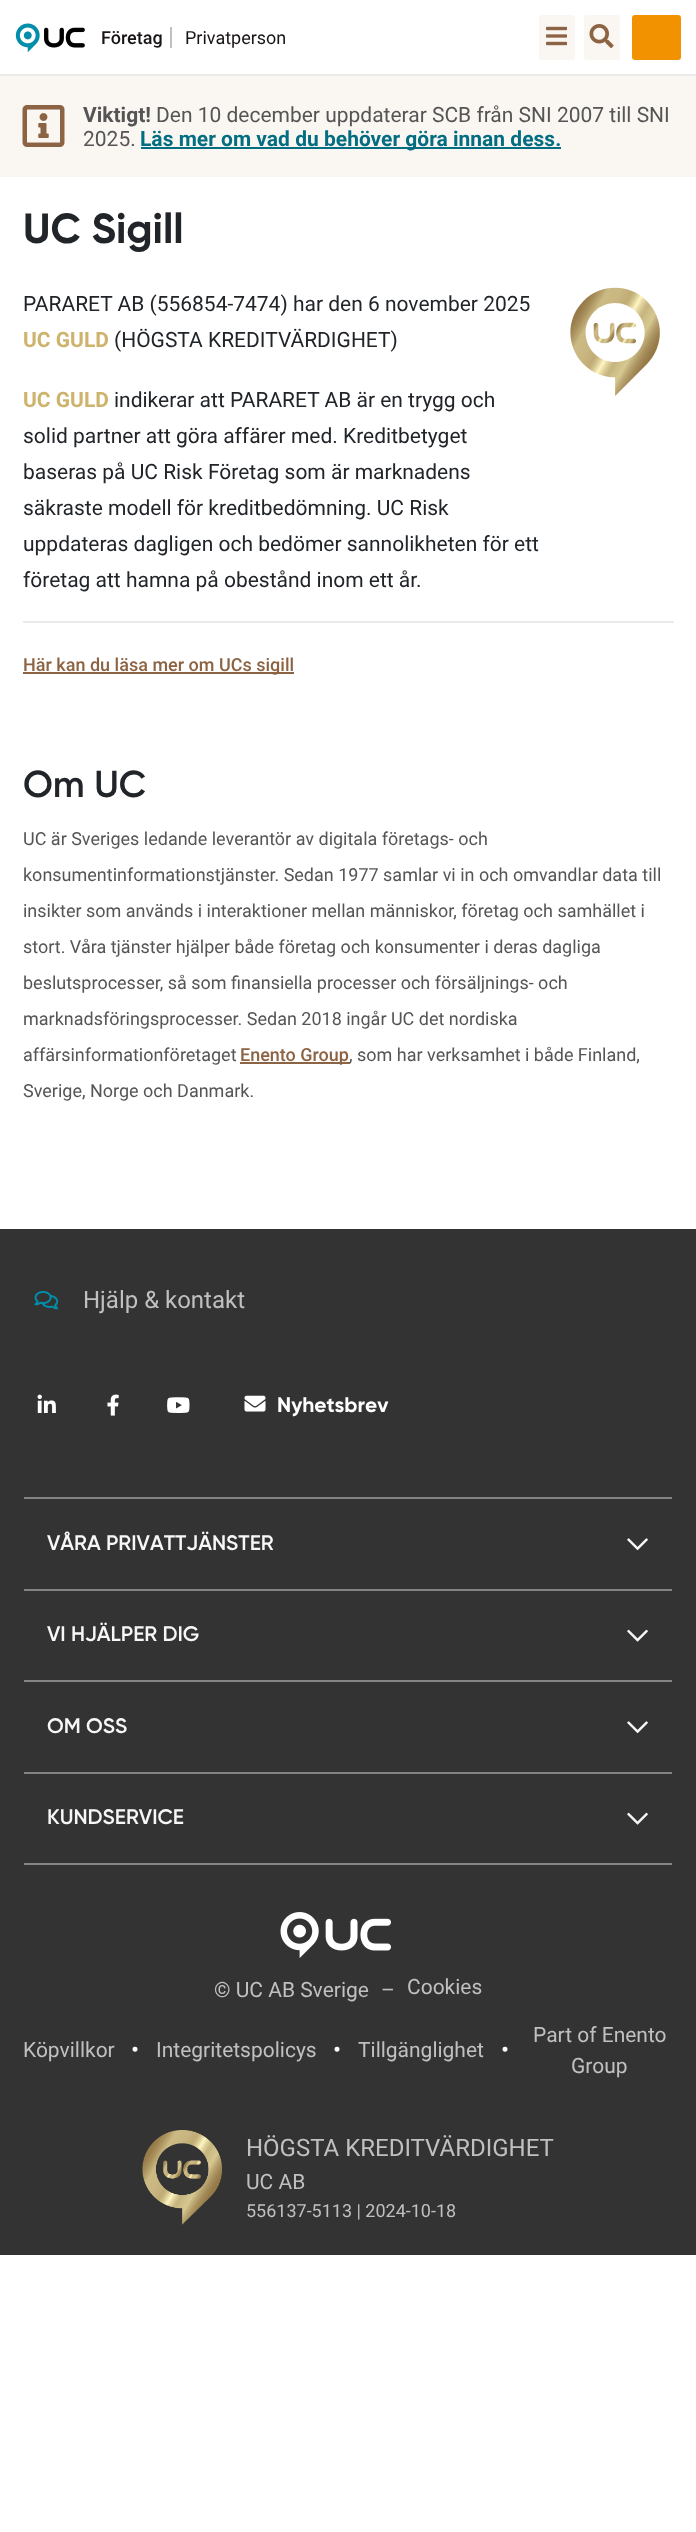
async function draw(canvas) {
  canvas.width = 696
  canvas.height = 2532
  const ctx = canvas.getContext('2d')
  ctx.miterLimit = 4
  ctx.fontKerning = 'normal'
  async function loadImage(src) {
    const img = new Image()
    img.src = src
    await img.decode()
    return img
  }

  ctx.fillStyle = '#fff'
  ctx.fillRect(0, 0, 696, 2532)
  ctx.fillStyle = '#eaeaea'
  ctx.fillRect(0, 74, 696, 2)
  ctx.drawImage(await loadImage('image0.png'), 15, 23, 70, 30)
  ctx.fillStyle = '#c0c0c0'
  ctx.fillRect(170, 27, 2, 21)
  ctx.font = '500 18px Roboto'
  ctx.fillStyle = '#191514'
  ctx.fillText('Företag', 101, 44)
  ctx.font = '18px Roboto'
  ctx.fillText('Privatperson', 185, 44)
  ctx.fillStyle = '#faf7f3'
  ctx.beginPath()
  ctx.roundRect(539, 15, 36, 45, 3)
  ctx.fill()
  ctx.drawImage(await loadImage('image1.png'), 546, 26, 21, 20)
  ctx.beginPath()
  ctx.roundRect(584, 15, 36, 45, 3)
  ctx.fill()
  ctx.drawImage(await loadImage('image2.png'), 589, 24, 25, 24)
  ctx.fillStyle = '#f39200'
  ctx.beginPath()
  ctx.roundRect(632, 15, 49, 45, 3)
  ctx.fill()
  ctx.fillStyle = '#faf7f3'
  ctx.fillRect(0, 76, 696, 101)
  ctx.drawImage(await loadImage('image3.png'), 22, 105, 43, 42)
  ctx.font = 'bold 21px Roboto'
  ctx.fillStyle = '#555'
  ctx.fillText('Viktigt!', 83, 122)
  ctx.font = '21px Roboto'
  ctx.fillText('Den 10 december uppdaterar SCB från SNI 2007 till SNI', 156, 122)
  ctx.fillText('2025.', 83, 146)
  ctx.fillStyle = '#036d82'
  ctx.fillRect(141, 147, 420, 2)
  ctx.font = 'bold 21px Roboto'
  ctx.fillText('Läs mer om vad du behöver göra innan dess.', 140, 146)
  ctx.font = '42px Gilroy'
  ctx.fillStyle = '#212529'
  ctx.fillText('UC Sigill', 23, 243)
  ctx.font = '21px Roboto'
  ctx.fillText('PARARET AB (556854-7474) har den 6 november 2025', 23, 311)
  ctx.font = 'bold 21px Roboto'
  ctx.fillStyle = '#cdb36c'
  ctx.fillText('UC GULD', 23, 347)
  ctx.font = '21px Roboto'
  ctx.fillStyle = '#212529'
  ctx.fillText('(HÖGSTA KREDITVÄRDIGHET)', 114, 347)
  ctx.font = 'bold 21px Roboto'
  ctx.fillStyle = '#cdb36c'
  ctx.fillText('UC GULD', 23, 407)
  ctx.font = '21px Roboto'
  ctx.fillStyle = '#212529'
  ctx.fillText('indikerar att PARARET AB är en trygg och', 114, 407)
  ctx.fillText('solid partner att göra affärer med. Kreditbetyget', 23, 443)
  ctx.fillText('baseras på UC Risk Företag som är marknadens', 23, 479)
  ctx.fillText('säkraste modell för kreditbedömning. UC Risk', 23, 515)
  ctx.fillText('uppdateras dagligen och bedömer sannolikheten för ett', 23, 551)
  ctx.fillText('företag att hamna på obestånd inom ett år.', 23, 587)
  ctx.drawImage(await loadImage('image4.png'), 570, 287, 90, 109)
  ctx.fillStyle = '#eaeaea'
  ctx.fillRect(23, 621, 651, 2)
  ctx.fillStyle = '#8d6443'
  ctx.fillRect(23, 672, 271, 2)
  ctx.font = '500 18px Roboto'
  ctx.fillText('Här kan du läsa mer om UCs sigill', 23, 671)
  ctx.font = '37.5px "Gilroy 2"'
  ctx.fillStyle = '#212529'
  ctx.fillText('Om UC', 23, 797)
  ctx.font = '18px Roboto'
  ctx.fillStyle = '#555'
  ctx.fillText('UC är Sveriges ledande leverantör av digitala företags- och', 23, 845)
  ctx.fillText('konsumentinformationstjänster. Sedan 1977 samlar vi in och omvandlar data till', 23, 881)
  ctx.fillText('insikter som används i interaktioner mellan människor, företag och samhället i', 23, 917)
  ctx.fillText('stort. Våra tjänster hjälper både företag och konsumenter i deras dagliga', 23, 953)
  ctx.fillText('beslutsprocesser, så som finansiella processer och försäljnings- och', 23, 989)
  ctx.fillText('marknadsföringsprocesser. Sedan 2018 ingår UC det nordiska', 23, 1025)
  ctx.fillText('affärsinformationföretaget', 23, 1061)
  ctx.fillStyle = '#8d6443'
  ctx.fillRect(240, 1062, 110, 2)
  ctx.font = '500 18px Roboto'
  ctx.fillText('Enento Group', 240, 1061)
  ctx.font = '18px Roboto'
  ctx.fillStyle = '#555'
  ctx.fillText(', som har verksamhet i både Finland,', 349, 1061)
  ctx.fillText('Sverige, Norge och Danmark.', 23, 1097)
  ctx.fillStyle = '#333'
  ctx.fillRect(0, 1229, 696, 1026)
  ctx.drawImage(await loadImage('image5.png'), 34, 1291, 25, 19)
  ctx.font = '24px Roboto'
  ctx.fillStyle = '#c0c0c0'
  ctx.fillText('Hjälp & kontakt', 83, 1308)
  ctx.drawImage(await loadImage('image6.png'), 37, 1394, 19, 19)
  ctx.drawImage(await loadImage('image7.png'), 107, 1394, 12, 22)
  ctx.drawImage(await loadImage('image8.png'), 167, 1397, 23, 16)
  ctx.drawImage(await loadImage('image9.png'), 244, 1395, 22, 17)
  ctx.font = '21px Gilroy'
  ctx.fillStyle = '#fff'
  ctx.fillText('Nyhetsbrev', 277, 1412)
  ctx.fillStyle = '#848484'
  ctx.fillRect(24, 1497, 648, 2)
  ctx.font = '21px "Gilroy 2"'
  ctx.fillStyle = '#f7f7f7'
  ctx.fillText('VÅRA PRIVATTJÄNSTER', 47, 1550)
  ctx.drawImage(await loadImage('image10.png'), 627, 1538, 21, 13)
  ctx.fillStyle = '#848484'
  ctx.fillRect(24, 1589, 648, 2)
  ctx.fillStyle = '#f7f7f7'
  ctx.fillText('VI HJÄLPER DIG', 47, 1641)
  ctx.drawImage(await loadImage('image11.png'), 627, 1629, 21, 13)
  ctx.fillStyle = '#848484'
  ctx.fillRect(24, 1680, 648, 2)
  ctx.fillStyle = '#f7f7f7'
  ctx.fillText('OM OSS', 47, 1733)
  ctx.drawImage(await loadImage('image10.png'), 627, 1721, 21, 13)
  ctx.fillStyle = '#848484'
  ctx.fillRect(24, 1772, 648, 2)
  ctx.fillRect(24, 1863, 648, 2)
  ctx.fillStyle = '#f7f7f7'
  ctx.fillText('KUNDSERVICE', 47, 1824)
  ctx.drawImage(await loadImage('image11.png'), 627, 1812, 21, 13)
  ctx.drawImage(await loadImage('image12.png'), 280, 1912, 111, 46)
  ctx.font = '21px Roboto'
  ctx.fillStyle = '#c0c0c0'
  ctx.fillText('© UC AB Sverige', 214, 1997)
  ctx.fillText('–', 381, 1997)
  ctx.fillText('Cookies', 407, 1994)
  ctx.fillText('Köpvillkor', 23, 2057)
  ctx.font = '24px Roboto'
  ctx.fillStyle = '#fff'
  ctx.fillText('•', 131, 2058)
  ctx.font = '21px Roboto'
  ctx.fillStyle = '#c0c0c0'
  ctx.fillText('Integritetspolicys', 156, 2057)
  ctx.font = '24px Roboto'
  ctx.fillStyle = '#fff'
  ctx.fillText('•', 333, 2058)
  ctx.font = '21px Roboto'
  ctx.fillStyle = '#c0c0c0'
  ctx.fillText('Tillgänglighet', 358, 2057)
  ctx.font = '24px Roboto'
  ctx.fillStyle = '#fff'
  ctx.fillText('•', 501, 2058)
  ctx.font = '21px Roboto'
  ctx.fillStyle = '#c0c0c0'
  ctx.fillText('Part of Enento', 533, 2042)
  ctx.fillText('Group', 571, 2073)
  ctx.drawImage(await loadImage('image13.png'), 142, 2130, 80, 95)
  ctx.font = '24px Roboto'
  ctx.fillText('HÖGSTA KREDITVÄRDIGHET', 246, 2156)
  ctx.font = '21px Roboto'
  ctx.fillText('UC AB', 246, 2189)
  ctx.font = '18px Roboto'
  ctx.fillText('556137-5113 | 2024-10-18', 246, 2217)
}

draw(document.querySelector('canvas'))
